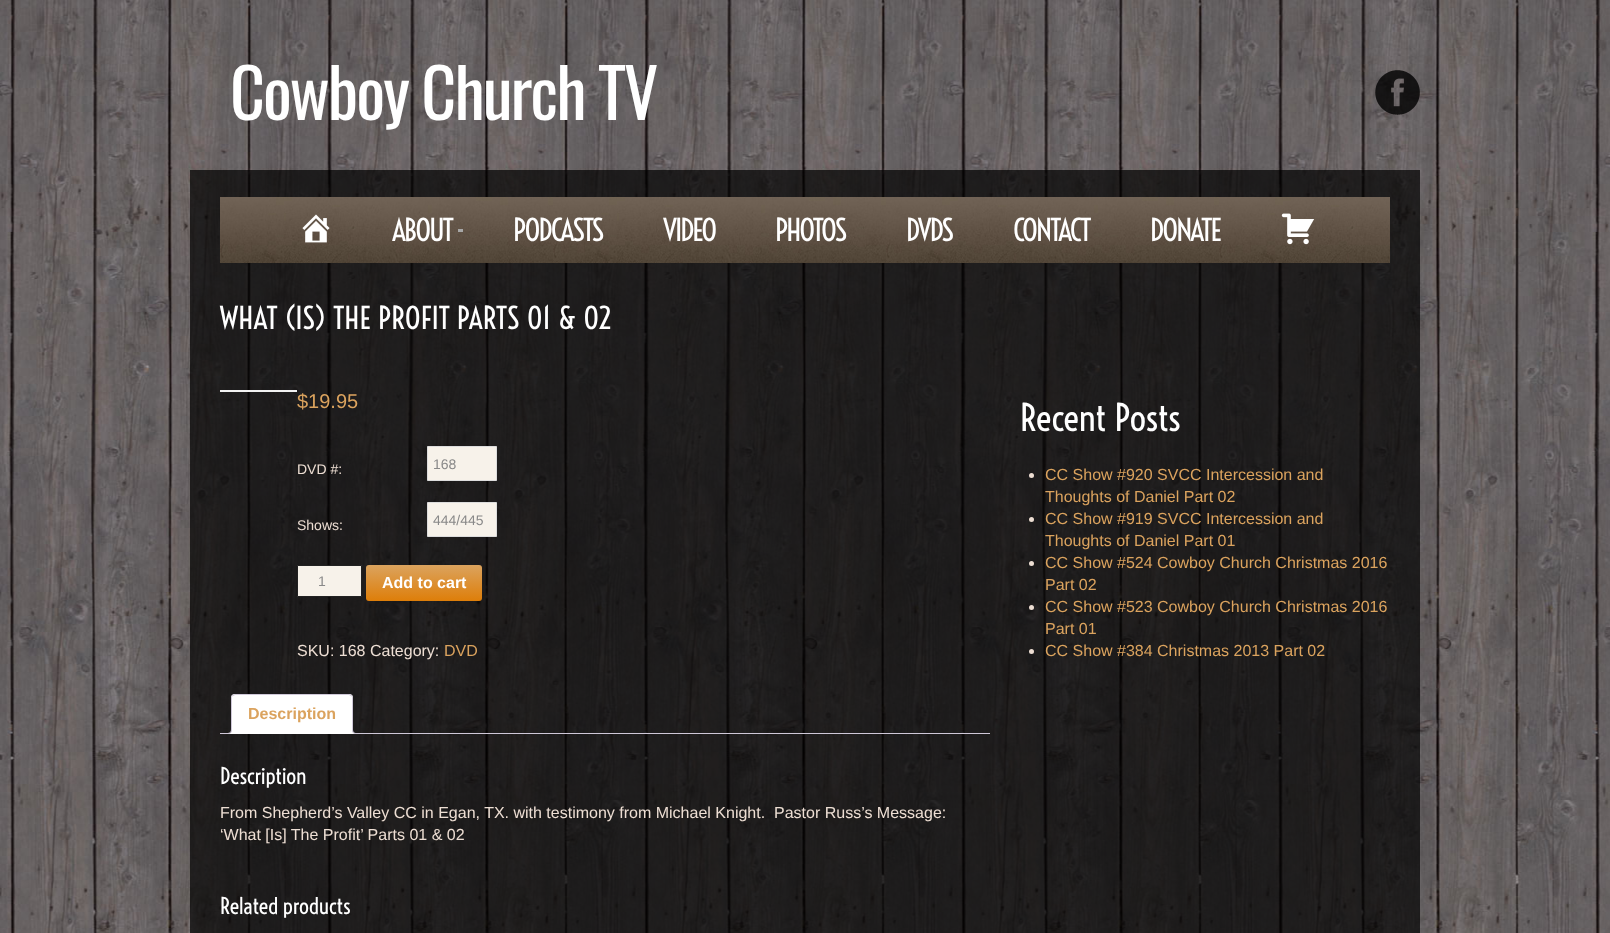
async function draw(canvas) {
  canvas.width = 1610
  canvas.height = 933
  const ctx = canvas.getContext('2d')
  ctx.miterLimit = 4
  ctx.fontKerning = 'normal'
  async function loadImage(src) {
    const img = new Image()
    img.src = src
    await img.decode()
    return img
  }
  let gradient

  ctx.fillStyle = '#fff'
  ctx.fillRect(0, 0, 1610, 933)
  ctx.drawImage(await loadImage('image0.png'), 0, 0, 1610, 933)
  ctx.letterSpacing = '-2px'
  ctx.font = '68px Oswald'
  ctx.fillText('Cowboy Church TV', 230, 120)
  ctx.drawImage(await loadImage('image1.png'), 1375, 70, 45, 45)
  ctx.fillStyle = '#000000b3'
  ctx.fillRect(190, 170, 1230, 120)
  ctx.drawImage(await loadImage('image2.png'), 220, 197, 1170, 66)
  ctx.drawImage(await loadImage('image3.png'), 302, 214, 28, 29)
  ctx.font = '30px Voltaire'
  ctx.fillStyle = '#fff'
  ctx.fillText('ABOUT', 392, 241)
  ctx.fillStyle = '#a7a7a7'
  ctx.fillRect(458, 229, 5, 3)
  ctx.fillStyle = '#fff'
  ctx.fillText('PODCASTS', 513, 241)
  ctx.fillText('VIDEO', 663, 241)
  ctx.fillText('PHOTOS', 775, 241)
  ctx.fillText('DVDS', 906, 241)
  ctx.fillText('CONTACT', 1013, 241)
  ctx.fillText('DONATE', 1150, 241)
  ctx.drawImage(await loadImage('image4.png'), 1281, 213, 34, 32)
  ctx.fillStyle = '#000000b3'
  ctx.fillRect(190, 290, 1230, 643)
  ctx.letterSpacing = '0px'
  ctx.fillStyle = '#fff'
  ctx.fillText('WHAT (IS) THE PROFIT PARTS 01 & 02', 220, 329)
  ctx.fillStyle = '#f2f2f2'
  ctx.fillRect(220, 390, 77, 2)
  ctx.font = '20px Liberation Sans'
  ctx.fillStyle = '#dba35e'
  ctx.fillText('$19.95', 297, 408)
  ctx.font = '14px Liberation Sans'
  ctx.fillStyle = '#edded3'
  ctx.fillText('DVD #:', 297, 474)
  ctx.fillStyle = '#f7f2ea'
  ctx.beginPath()
  ctx.rect(427.5, 446.5, 69, 34)
  ctx.fill()
  ctx.strokeStyle = '#ddd'
  ctx.stroke()
  ctx.fillStyle = '#898989'
  ctx.fillText('168', 433, 469)
  ctx.fillStyle = '#edded3'
  ctx.fillText('Shows:', 297, 530)
  ctx.fillStyle = '#f7f2ea'
  ctx.beginPath()
  ctx.rect(427.5, 502.5, 69, 34)
  ctx.fill()
  ctx.stroke()
  ctx.fillStyle = '#898989'
  ctx.fillText('444/445', 433, 525)
  ctx.fillStyle = '#f7f2ea'
  ctx.beginPath()
  ctx.rect(297.5, 565.5, 64, 31)
  ctx.fill()
  ctx.strokeStyle = '#222'
  ctx.stroke()
  ctx.fillStyle = '#898989'
  ctx.fillText('1', 318, 586)
  gradient = ctx.createLinearGradient(366, 565, 366, 601)
  gradient.addColorStop(0, '#dba35e')
  gradient.addColorStop(1, '#de7e09')
  ctx.fillStyle = gradient
  ctx.beginPath()
  ctx.roundRect(366, 565, 116, 36, 3)
  ctx.fill()
  ctx.font = 'bold 16px Liberation Sans'
  ctx.fillStyle = '#fff'
  ctx.fillText('Add to cart', 382, 588)
  ctx.font = '16px Liberation Sans'
  ctx.fillStyle = '#edded3'
  ctx.fillText('SKU: 168 Category:', 297, 656)
  ctx.fillStyle = '#dba35e'
  ctx.fillText('DVD', 444, 656)
  ctx.fillStyle = '#cfc8d8'
  ctx.fillRect(220, 733, 770, 1)
  ctx.fillStyle = '#fff'
  ctx.beginPath()
  ctx.roundRect(231, 694, 122, 40, [4, 4, 0, 0])
  ctx.fill()
  ctx.fillStyle = '#cfc8d8'
  ctx.beginPath()
  ctx.moveTo(235, 694)
  ctx.lineTo(232, 695)
  ctx.lineTo(233, 696)
  ctx.lineTo(235, 695)
  ctx.lineTo(349, 695)
  ctx.lineTo(351, 696)
  ctx.lineTo(352, 695)
  ctx.lineTo(349, 694)
  ctx.closePath()
  ctx.fill()
  ctx.beginPath()
  ctx.moveTo(353, 734)
  ctx.lineTo(353, 698)
  ctx.bezierCurveTo(353, 697, 352.5, 696, 352, 695)
  ctx.lineTo(351, 696)
  ctx.bezierCurveTo(352, 696, 352, 697, 352, 698)
  ctx.lineTo(352, 733)
  ctx.closePath()
  ctx.fill()
  ctx.fillStyle = '#fff'
  ctx.beginPath()
  ctx.moveTo(353, 734)
  ctx.lineTo(352, 733)
  ctx.lineTo(232, 733)
  ctx.lineTo(231, 734)
  ctx.closePath()
  ctx.fill()
  ctx.fillStyle = '#cfc8d8'
  ctx.beginPath()
  ctx.moveTo(231, 734)
  ctx.lineTo(232, 733)
  ctx.lineTo(232, 698)
  ctx.bezierCurveTo(232, 697, 232, 696, 233, 696)
  ctx.lineTo(232, 695)
  ctx.bezierCurveTo(231.5, 696, 231, 697, 231, 698)
  ctx.closePath()
  ctx.fill()
  ctx.font = 'bold 16px Liberation Sans'
  ctx.fillStyle = '#dba35e'
  ctx.fillText('Description', 248, 719)
  ctx.save()
  ctx.beginPath()
  ctx.rect(220, 694, 770, 40)
  ctx.clip()
  ctx.fillStyle = '#fff'
  ctx.beginPath()
  ctx.moveTo(229, 734)
  ctx.lineTo(229, 736)
  ctx.bezierCurveTo(232.5, 736, 234, 734.5, 234, 731)
  ctx.lineTo(232, 731)
  ctx.bezierCurveTo(231.5, 732.5, 230.5, 733.5, 229, 734)
  ctx.closePath()
  ctx.fill()
  ctx.restore()
  ctx.fillStyle = '#cfc8d8'
  ctx.beginPath()
  ctx.moveTo(227, 729)
  ctx.lineTo(232, 729)
  ctx.bezierCurveTo(232, 732.5, 230.5, 734, 227, 734)
  ctx.closePath()
  ctx.moveTo(227, 729)
  ctx.lineTo(231, 729)
  ctx.bezierCurveTo(231, 732, 230, 733, 227, 733)
  ctx.closePath()
  ctx.fill('evenodd')
  ctx.save()
  ctx.beginPath()
  ctx.rect(220, 694, 770, 40)
  ctx.clip()
  ctx.fillStyle = '#fff'
  ctx.beginPath()
  ctx.moveTo(350, 731)
  ctx.bezierCurveTo(350, 734.5, 351.5, 736, 355, 736)
  ctx.lineTo(355, 734)
  ctx.bezierCurveTo(353.5, 733.5, 352.5, 732.5, 352, 731)
  ctx.closePath()
  ctx.fill()
  ctx.restore()
  ctx.beginPath()
  ctx.moveTo(352, 729)
  ctx.lineTo(357, 729)
  ctx.lineTo(357, 734)
  ctx.bezierCurveTo(354.5, 734, 352, 733, 352, 730)
  ctx.closePath()
  ctx.moveTo(353, 729)
  ctx.lineTo(357, 729)
  ctx.lineTo(357, 733)
  ctx.bezierCurveTo(355, 733, 353, 732.5, 353, 730)
  ctx.closePath()
  ctx.fill('evenodd')
  ctx.font = '22px Voltaire'
  ctx.fillStyle = '#fff'
  ctx.fillText('Description', 220, 784)
  ctx.font = '16px Liberation Sans'
  ctx.fillStyle = '#edded3'
  ctx.fillText('From Shepherd’s Valley CC in Egan, TX. with testimony from Michael Knight.  Pastor Russ’s Message:', 220, 818)
  ctx.fillText('‘What [Is] The Profit’ Parts 01 & 02', 220, 840)
  ctx.font = '22px Voltaire'
  ctx.fillStyle = '#fff'
  ctx.fillText('Related products', 220, 914)
  ctx.font = '36px Voltaire'
  ctx.fillText('Recent Posts', 1020, 431)
  ctx.fillStyle = '#edded3'
  ctx.beginPath()
  ctx.arc(1031.5, 475.5, 2.5, 0, 2 * Math.PI)
  ctx.fill()
  ctx.font = '16px Liberation Sans'
  ctx.fillStyle = '#dba35e'
  ctx.fillText('CC Show #920 SVCC Intercession and', 1045, 480)
  ctx.fillText('Thoughts of Daniel Part 02', 1045, 502)
  ctx.fillStyle = '#edded3'
  ctx.beginPath()
  ctx.arc(1031.5, 519.5, 2.5, 0, 2 * Math.PI)
  ctx.fill()
  ctx.fillStyle = '#dba35e'
  ctx.fillText('CC Show #919 SVCC Intercession and', 1045, 524)
  ctx.fillText('Thoughts of Daniel Part 01', 1045, 546)
  ctx.fillStyle = '#edded3'
  ctx.beginPath()
  ctx.arc(1031.5, 563.5, 2.5, 0, 2 * Math.PI)
  ctx.fill()
  ctx.fillStyle = '#dba35e'
  ctx.fillText('CC Show #524 Cowboy Church Christmas 2016', 1045, 568)
  ctx.fillText('Part 02', 1045, 590)
  ctx.fillStyle = '#edded3'
  ctx.beginPath()
  ctx.arc(1031.5, 607.5, 2.5, 0, 2 * Math.PI)
  ctx.fill()
  ctx.fillStyle = '#dba35e'
  ctx.fillText('CC Show #523 Cowboy Church Christmas 2016', 1045, 612)
  ctx.fillText('Part 01', 1045, 634)
  ctx.fillStyle = '#edded3'
  ctx.beginPath()
  ctx.arc(1031.5, 651.5, 2.5, 0, 2 * Math.PI)
  ctx.fill()
  ctx.fillStyle = '#dba35e'
  ctx.fillText('CC Show #384 Christmas 2013 Part 02', 1045, 656)
}

draw(document.querySelector('canvas'))
